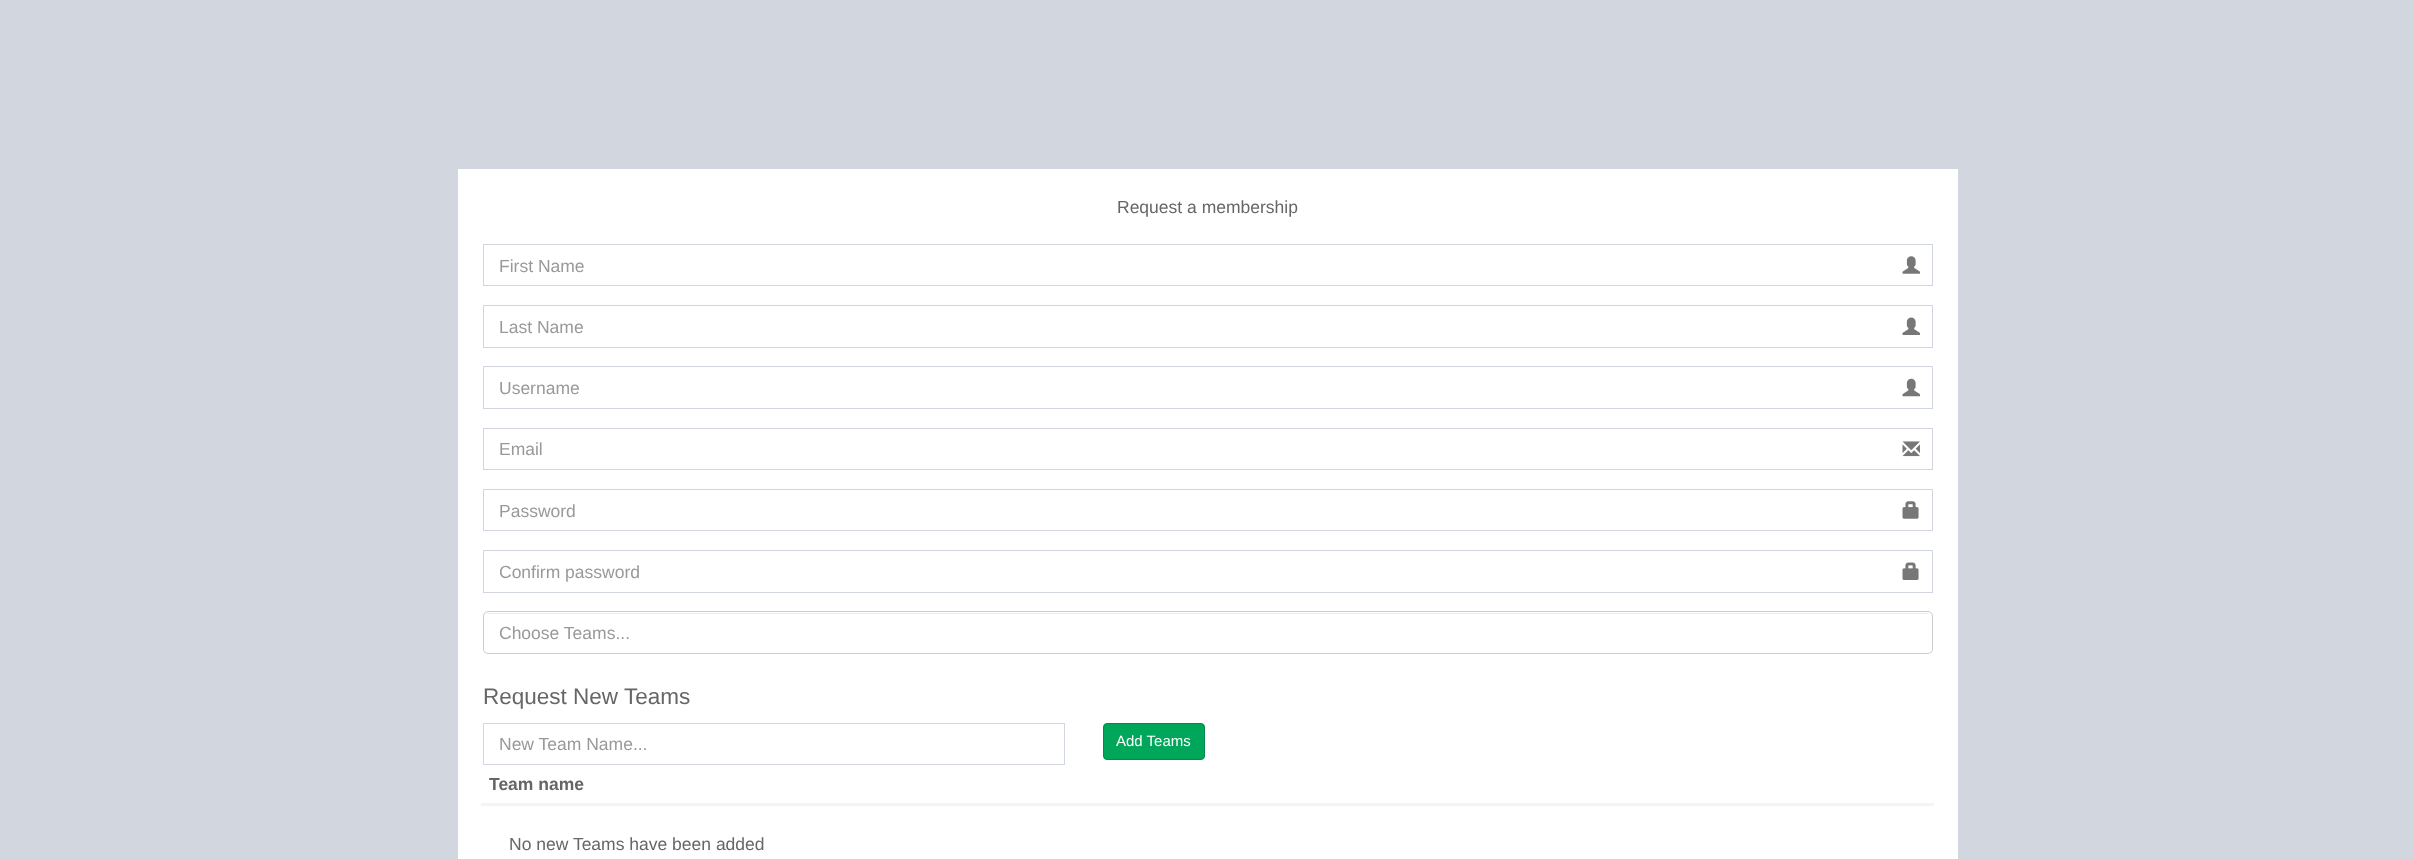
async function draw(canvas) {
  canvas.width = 2414
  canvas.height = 859
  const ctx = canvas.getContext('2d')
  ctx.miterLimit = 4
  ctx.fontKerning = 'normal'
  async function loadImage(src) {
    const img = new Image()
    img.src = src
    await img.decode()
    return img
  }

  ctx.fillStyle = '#d2d6de'
  ctx.fillRect(0, 0, 2414, 859)
  ctx.fillStyle = '#fff'
  ctx.fillRect(458, 169, 1500, 690)
  ctx.font = '17.5px Liberation Sans'
  ctx.fillStyle = '#666'
  ctx.fillText('Request a membership', 1117, 213)
  ctx.strokeStyle = '#d2d6de'
  ctx.strokeRect(483.5, 244.5, 1449, 41)
  ctx.fillStyle = '#999'
  ctx.fillText('First Name', 499, 272)
  ctx.drawImage(await loadImage('image0.png'), 1902, 256, 18, 18)
  ctx.strokeRect(483.5, 305.5, 1449, 42)
  ctx.fillText('Last Name', 499, 333)
  ctx.drawImage(await loadImage('image1.png'), 1902, 317, 18, 18)
  ctx.strokeRect(483.5, 366.5, 1449, 42)
  ctx.fillText('Username', 499, 394)
  ctx.drawImage(await loadImage('image2.png'), 1902, 378, 18, 19)
  ctx.strokeRect(483.5, 428.5, 1449, 41)
  ctx.fillText('Email', 499, 455)
  ctx.drawImage(await loadImage('image3.png'), 1902, 441, 18, 16)
  ctx.strokeRect(483.5, 489.5, 1449, 41)
  ctx.fillText('Password', 499, 517)
  ctx.drawImage(await loadImage('image4.png'), 1902, 501, 17, 18)
  ctx.strokeRect(483.5, 550.5, 1449, 42)
  ctx.fillText('Confirm password', 499, 578)
  ctx.drawImage(await loadImage('image5.png'), 1902, 562, 17, 18)
  ctx.fillStyle = '#ececec'
  ctx.beginPath()
  ctx.moveTo(488, 614)
  ctx.lineTo(1928, 614)
  ctx.bezierCurveTo(1930, 614, 1931, 615, 1931, 618)
  ctx.lineTo(1931, 617)
  ctx.bezierCurveTo(1931, 615, 1929, 613, 1927, 613)
  ctx.lineTo(488, 613)
  ctx.bezierCurveTo(486, 613, 484, 615, 484, 617)
  ctx.lineTo(484, 618)
  ctx.bezierCurveTo(484, 615, 485, 614, 488, 614)
  ctx.closePath()
  ctx.fill()
  ctx.beginPath()
  ctx.roundRect(483.5, 611.5, 1449, 42, 4.5)
  ctx.strokeStyle = '#ccc'
  ctx.stroke()
  ctx.fillStyle = '#999'
  ctx.fillText('Choose Teams...', 499, 639)
  ctx.font = '22.5px Liberation Sans'
  ctx.fillStyle = '#666'
  ctx.fillText('Request New Teams', 483, 704)
  ctx.strokeStyle = '#d2d6de'
  ctx.strokeRect(483.5, 723.5, 581, 41)
  ctx.font = '17.5px Liberation Sans'
  ctx.fillStyle = '#999'
  ctx.fillText('New Team Name...', 499, 750)
  ctx.fillStyle = '#00a65a'
  ctx.beginPath()
  ctx.roundRect(1103.5, 723.5, 101, 36, 3.5)
  ctx.fill()
  ctx.strokeStyle = '#008d4c'
  ctx.stroke()
  ctx.font = '15px Liberation Sans'
  ctx.fillStyle = '#fff'
  ctx.fillText('Add Teams', 1116, 746)
  ctx.font = 'bold 17.5px Liberation Sans'
  ctx.fillStyle = '#666'
  ctx.fillText('Team name', 489, 790)
  ctx.fillStyle = '#f4f4f4'
  ctx.fillRect(481, 803, 1453, 3)
  ctx.font = '17.5px Liberation Sans'
  ctx.fillStyle = '#666'
  ctx.fillText('No new Teams have been added', 509, 850)
}

draw(document.querySelector('canvas'))
